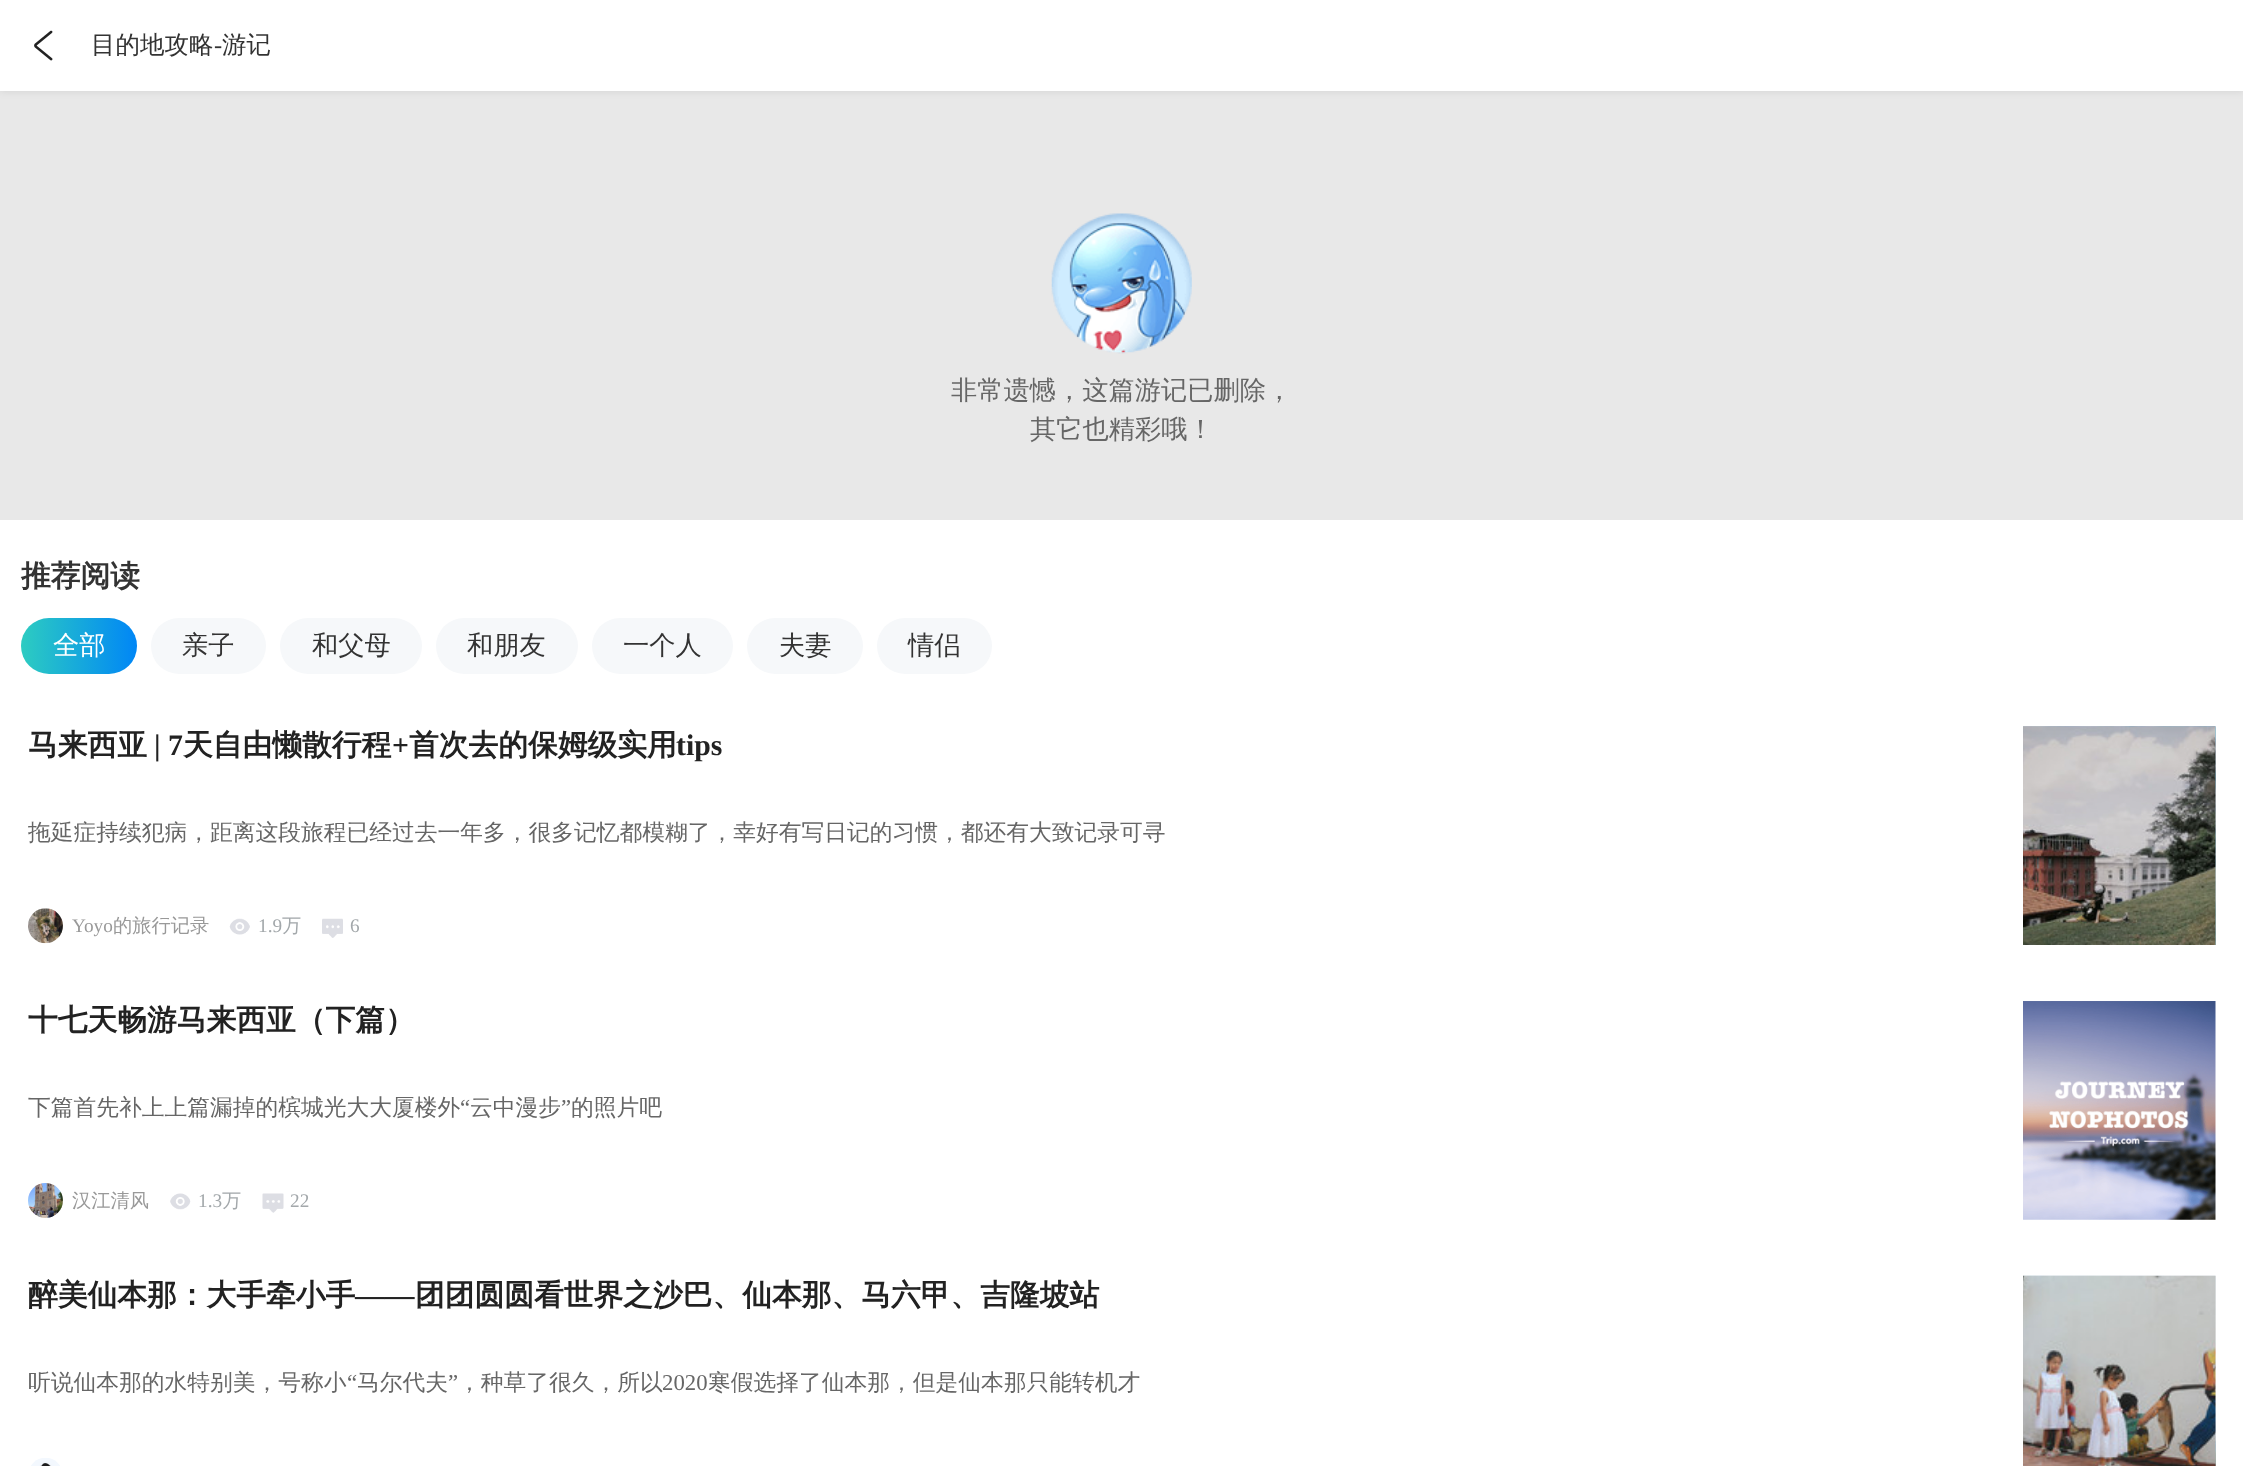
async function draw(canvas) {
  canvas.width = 2243
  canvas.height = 1466
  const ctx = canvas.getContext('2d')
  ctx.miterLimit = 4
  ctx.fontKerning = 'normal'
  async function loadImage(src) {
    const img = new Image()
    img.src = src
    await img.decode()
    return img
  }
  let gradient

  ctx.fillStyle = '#e8e8e8'
  ctx.fillRect(0, 0, 2243, 1466)
  ctx.fillStyle = '#00000017'
  ctx.filter = 'blur(4.5px)'
  ctx.beginPath()
  ctx.rect(0, 0, 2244, 91)
  ctx.fill()
  ctx.filter = 'none'
  ctx.fillStyle = '#fff'
  ctx.fillRect(0, 0, 2243, 91)
  ctx.drawImage(await loadImage('image0.png'), 34, 30, 19, 31)
  ctx.font = '500 24.5px WenQuanYi Zen Hei'
  ctx.fillStyle = '#333'
  ctx.fillText('目的地攻略', 91, 53)
  ctx.font = '24.5px Liberation Serif'
  ctx.fillText('-', 214, 53)
  ctx.font = '500 24.5px WenQuanYi Zen Hei'
  ctx.fillText('游记', 222, 53)
  ctx.drawImage(await loadImage('image1.png'), 1051, 213, 141, 141)
  ctx.font = '500 26.25px WenQuanYi Zen Hei'
  ctx.fillStyle = '#666'
  ctx.fillText('非常遗憾，这篇游记已删除，', 951, 399)
  ctx.fillText('其它也精彩哦！', 1030, 438)
  ctx.fillStyle = '#fff'
  ctx.fillRect(0, 520, 2243, 946)
  ctx.font = 'bold 29.75px WenQuanYi Zen Hei'
  ctx.fillStyle = '#333'
  ctx.fillText('推荐阅读', 21, 586)
  gradient = ctx.createLinearGradient(137, 646, 21, 646)
  gradient.addColorStop(0, '#0086f6')
  gradient.addColorStop(1, '#2dccc1')
  ctx.fillStyle = gradient
  ctx.beginPath()
  ctx.roundRect(21, 618, 116, 56, 28)
  ctx.fill()
  ctx.font = '500 26.25px WenQuanYi Zen Hei'
  ctx.fillStyle = '#fff'
  ctx.fillText('全部', 53, 654)
  ctx.fillStyle = '#f6f8fa'
  ctx.beginPath()
  ctx.roundRect(151, 618, 115, 56, 28)
  ctx.fill()
  ctx.fillStyle = '#333'
  ctx.fillText('亲子', 182, 654)
  ctx.fillStyle = '#f6f8fa'
  ctx.beginPath()
  ctx.roundRect(280, 618, 142, 56, 28)
  ctx.fill()
  ctx.fillStyle = '#333'
  ctx.fillText('和父母', 312, 654)
  ctx.fillStyle = '#f6f8fa'
  ctx.beginPath()
  ctx.roundRect(436, 618, 142, 56, 28)
  ctx.fill()
  ctx.fillStyle = '#333'
  ctx.fillText('和朋友', 467, 654)
  ctx.fillStyle = '#f6f8fa'
  ctx.beginPath()
  ctx.roundRect(592, 618, 141, 56, 28)
  ctx.fill()
  ctx.fillStyle = '#333'
  ctx.fillText('一个人', 623, 654)
  ctx.fillStyle = '#f6f8fa'
  ctx.beginPath()
  ctx.roundRect(747, 618, 116, 56, 28)
  ctx.fill()
  ctx.fillStyle = '#333'
  ctx.fillText('夫妻', 779, 654)
  ctx.fillStyle = '#f6f8fa'
  ctx.beginPath()
  ctx.roundRect(877, 618, 115, 56, 28)
  ctx.fill()
  ctx.fillStyle = '#333'
  ctx.fillText('情侣', 908, 654)
  ctx.font = 'bold 29.75px WenQuanYi Zen Hei'
  ctx.fillStyle = '#222'
  ctx.fillText('马来西亚', 28, 755)
  ctx.font = 'bold 29.75px Liberation Serif'
  ctx.fillText('| 7', 154, 755)
  ctx.font = 'bold 29.75px WenQuanYi Zen Hei'
  ctx.fillText('天自由懒散行程', 183, 755)
  ctx.font = 'bold 29.75px Liberation Serif'
  ctx.fillText('+', 392, 755)
  ctx.font = 'bold 29.75px WenQuanYi Zen Hei'
  ctx.fillText('首次去的保姆级实用', 409, 755)
  ctx.font = 'bold 29.75px Liberation Serif'
  ctx.fillText('tips', 676, 755)
  ctx.font = '500 22.75px WenQuanYi Zen Hei'
  ctx.fillStyle = '#666'
  ctx.fillText('拖延症持续犯病，距离这段旅程已经过去一年多，很多记忆都模糊了，幸好有写日记的习惯，都还有大致记录可寻', 28, 840)
  ctx.drawImage(await loadImage('image2.png'), 28, 908, 35, 36)
  ctx.font = '19.25px Liberation Serif'
  ctx.fillStyle = '#999'
  ctx.fillText('Yoyo', 72, 932)
  ctx.font = '500 19.25px WenQuanYi Zen Hei'
  ctx.fillText('的旅行记录', 113, 932)
  ctx.drawImage(await loadImage('image3.png'), 229, 918, 21, 17)
  ctx.font = '19.25px Liberation Serif'
  ctx.fillStyle = '#a3a8ab'
  ctx.fillText('1.9', 258, 932)
  ctx.font = '500 19.25px WenQuanYi Zen Hei'
  ctx.fillText('万', 282, 932)
  ctx.drawImage(await loadImage('image4.png'), 322, 918, 21, 20)
  ctx.font = '19.25px Liberation Serif'
  ctx.fillText('6', 350, 932)
  ctx.drawImage(await loadImage('image5.png'), 2023, 726, 193, 219)
  ctx.drawImage(await loadImage('image6.png'), 2023, 726, 193, 219)
  ctx.font = 'bold 29.75px WenQuanYi Zen Hei'
  ctx.fillStyle = '#222'
  ctx.fillText('十七天畅游马来西亚（下篇）', 28, 1030)
  ctx.font = '500 22.75px WenQuanYi Zen Hei'
  ctx.fillStyle = '#666'
  ctx.fillText('下篇首先补上上篇漏掉的槟城光大大厦楼外', 28, 1115)
  ctx.font = '22.75px Liberation Serif'
  ctx.fillText('“', 460, 1115)
  ctx.font = '500 22.75px WenQuanYi Zen Hei'
  ctx.fillText('云中漫步', 470, 1115)
  ctx.font = '22.75px Liberation Serif'
  ctx.fillText('”', 561, 1115)
  ctx.font = '500 22.75px WenQuanYi Zen Hei'
  ctx.fillText('的照片吧', 571, 1115)
  ctx.drawImage(await loadImage('image7.png'), 28, 1183, 35, 35)
  ctx.font = '500 19.25px WenQuanYi Zen Hei'
  ctx.fillStyle = '#999'
  ctx.fillText('汉江清风', 72, 1207)
  ctx.drawImage(await loadImage('image8.png'), 170, 1193, 21, 17)
  ctx.font = '19.25px Liberation Serif'
  ctx.fillStyle = '#a3a8ab'
  ctx.fillText('1.3', 198, 1207)
  ctx.font = '500 19.25px WenQuanYi Zen Hei'
  ctx.fillText('万', 222, 1207)
  ctx.drawImage(await loadImage('image9.png'), 262, 1193, 22, 20)
  ctx.font = '19.25px Liberation Serif'
  ctx.fillText('22', 290, 1207)
  ctx.drawImage(await loadImage('image10.png'), 2023, 1001, 193, 219)
  ctx.font = 'bold 29.75px WenQuanYi Zen Hei'
  ctx.fillStyle = '#222'
  ctx.fillText('醉美仙本那：大手牵小手', 28, 1305)
  ctx.font = 'bold 29.75px Liberation Serif'
  ctx.fillText('——', 355, 1305)
  ctx.font = 'bold 29.75px WenQuanYi Zen Hei'
  ctx.fillText('团团圆圆看世界之沙巴、仙本那、马六甲、吉隆坡站', 415, 1305)
  ctx.font = '500 22.75px WenQuanYi Zen Hei'
  ctx.fillStyle = '#666'
  ctx.fillText('听说仙本那的水特别美，号称小', 28, 1390)
  ctx.font = '22.75px Liberation Serif'
  ctx.fillText('“', 347, 1390)
  ctx.font = '500 22.75px WenQuanYi Zen Hei'
  ctx.fillText('马尔代夫', 357, 1390)
  ctx.font = '22.75px Liberation Serif'
  ctx.fillText('”', 448, 1390)
  ctx.font = '500 22.75px WenQuanYi Zen Hei'
  ctx.fillText('，种草了很久，所以', 458, 1390)
  ctx.font = '22.75px Liberation Serif'
  ctx.fillText('2020', 662, 1390)
  ctx.font = '500 22.75px WenQuanYi Zen Hei'
  ctx.fillText('寒假选择了仙本那，但是仙本那只能转机才', 708, 1390)
  ctx.drawImage(await loadImage('image11.png'), 31, 1458, 29, 8)
  ctx.drawImage(await loadImage('image12.png'), 2023, 1275, 193, 191)
  ctx.drawImage(await loadImage('image13.png'), 2023, 1275, 193, 191)
}

draw(document.querySelector('canvas'))
